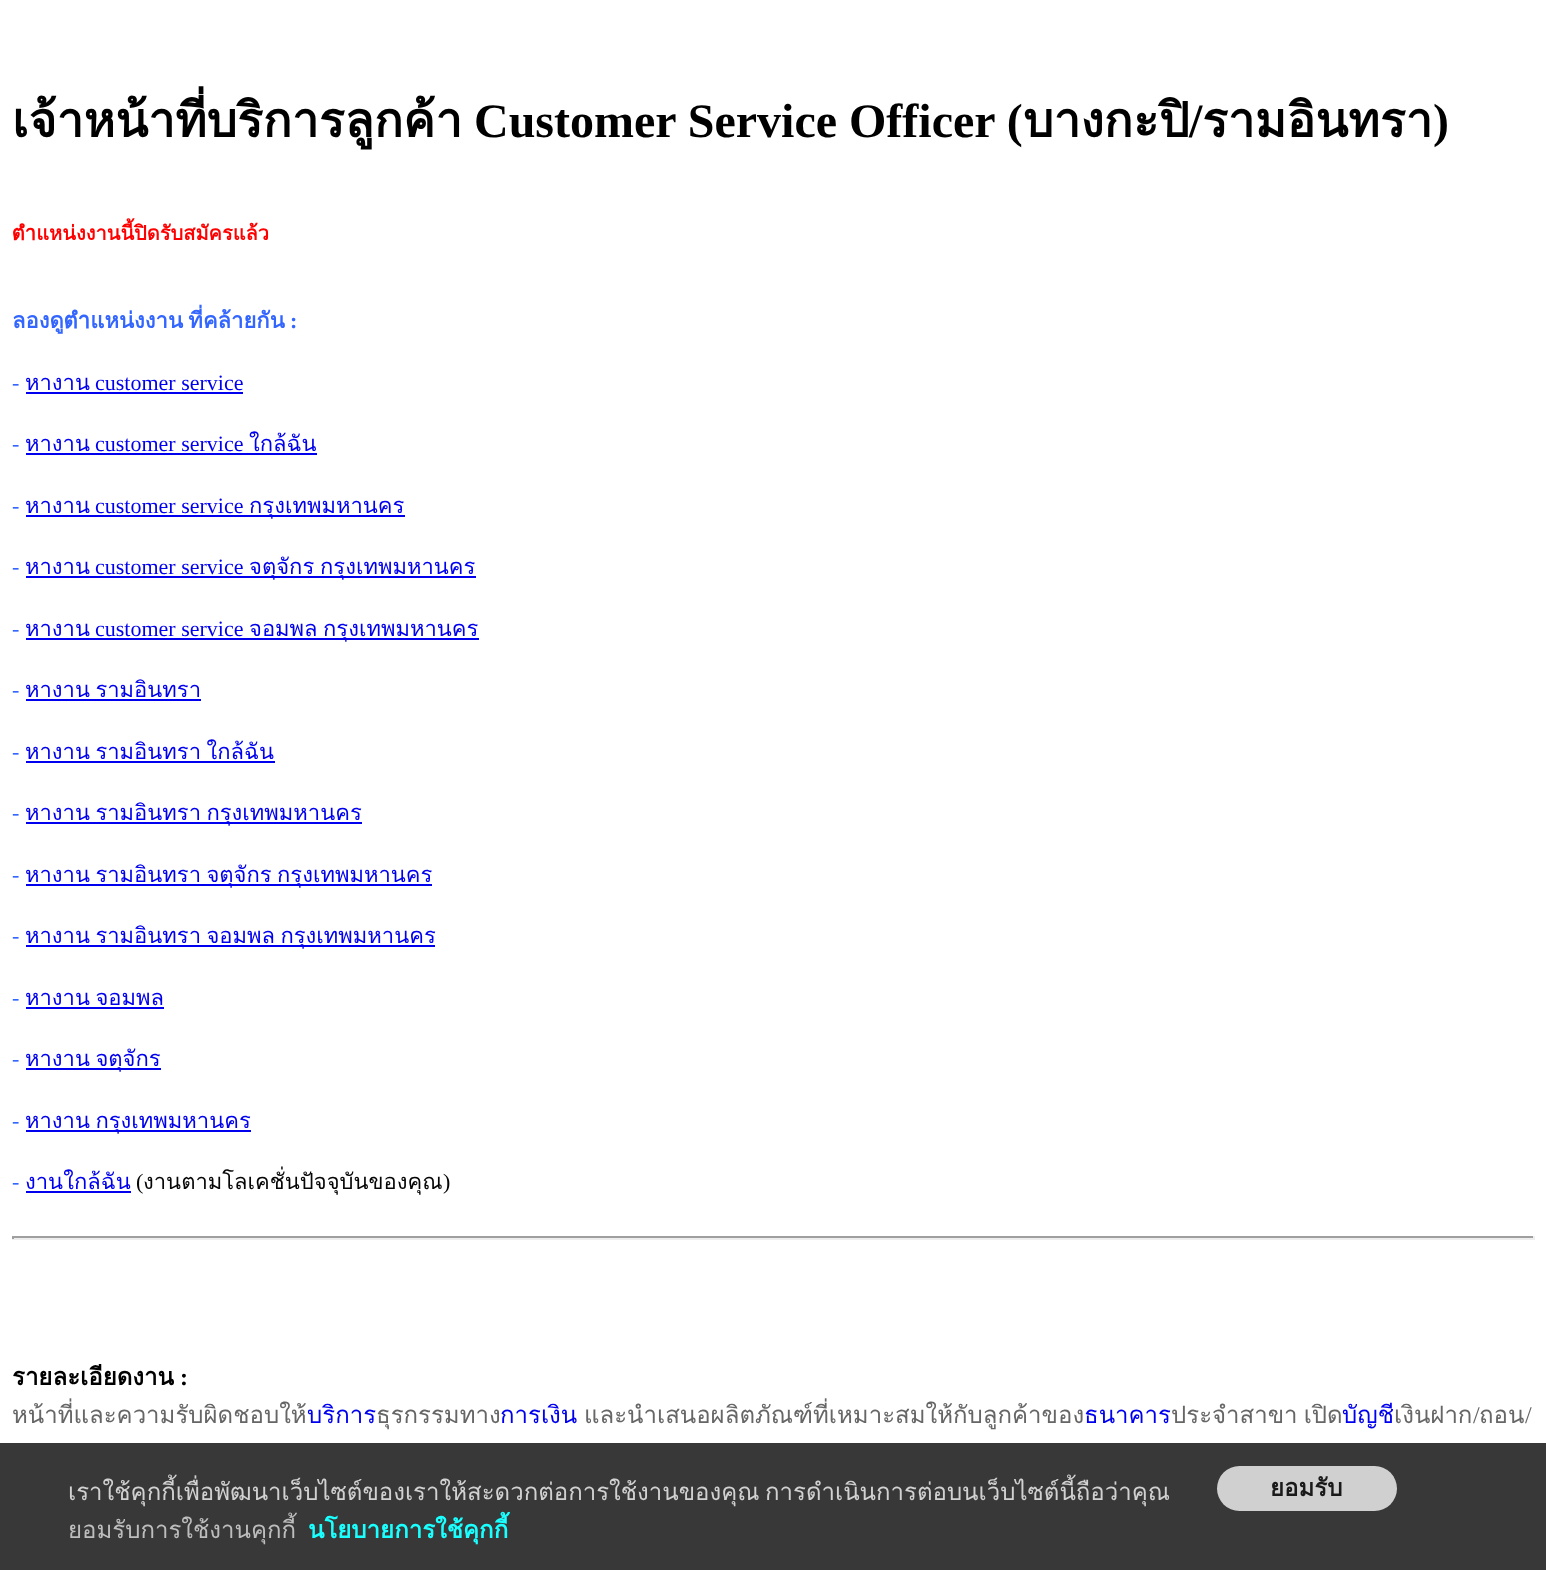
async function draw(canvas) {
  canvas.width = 1546
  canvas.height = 1570
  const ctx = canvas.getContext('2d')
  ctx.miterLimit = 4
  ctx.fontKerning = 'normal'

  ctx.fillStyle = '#fff'
  ctx.fillRect(0, 0, 1546, 1570)
  ctx.font = 'bold 48px Loma'
  ctx.fillStyle = '#000'
  ctx.fillText('เจ้าหน้าที่บริการลูกค้า', 12, 137)
  ctx.font = 'bold 48px Liberation Serif'
  ctx.fillText('Customer Service Officer (', 474, 137)
  ctx.font = 'bold 48px Loma'
  ctx.fillText('บางกะปิ', 1023, 137)
  ctx.font = 'bold 48px Liberation Serif'
  ctx.fillText('/', 1189, 137)
  ctx.font = 'bold 48px Loma'
  ctx.fillText('รามอินทรา', 1202, 137)
  ctx.font = 'bold 48px Liberation Serif'
  ctx.fillText(')', 1433, 137)
  ctx.font = 'bold 20px Loma'
  ctx.fillStyle = '#f00'
  ctx.fillText('ตำแหน่งงานนี้ปิดรับสมัครแล้ว', 12, 240)
  ctx.wordSpacing = '-2px'
  ctx.font = 'bold 22px Loma'
  ctx.fillStyle = '#36f'
  ctx.fillText('ลองดูตำแหน่งงาน ที่คล้ายกัน', 12, 328)
  ctx.wordSpacing = '0px'
  ctx.font = 'bold 22px Liberation Serif'
  ctx.fillText(':', 290, 328)
  ctx.font = '22px Liberation Serif'
  ctx.fillText('-', 12, 390)
  ctx.font = '22px Loma'
  ctx.fillStyle = '#00e'
  ctx.fillText('หางาน', 25, 390)
  ctx.fillRect(26, 392, 217, 2)
  ctx.font = '22px Liberation Serif'
  ctx.fillText('customer service', 95, 390)
  ctx.fillStyle = '#36f'
  ctx.fillText('-', 12, 451)
  ctx.font = '22px Loma'
  ctx.fillStyle = '#00e'
  ctx.fillText('หางาน', 25, 451)
  ctx.fillRect(26, 453, 291, 2)
  ctx.font = '22px Liberation Serif'
  ctx.fillText('customer service', 95, 451)
  ctx.font = '22px Loma'
  ctx.fillText('ใกล้ฉัน', 249, 451)
  ctx.font = '22px Liberation Serif'
  ctx.fillStyle = '#36f'
  ctx.fillText('-', 12, 513)
  ctx.font = '22px Loma'
  ctx.fillStyle = '#00e'
  ctx.fillText('หางาน', 25, 513)
  ctx.font = '22px Liberation Serif'
  ctx.fillText('customer service', 95, 513)
  ctx.fillRect(26, 515, 379, 2)
  ctx.font = '22px Loma'
  ctx.fillText('กรุงเทพมหานคร', 249, 513)
  ctx.font = '22px Liberation Serif'
  ctx.fillStyle = '#36f'
  ctx.fillText('-', 12, 574)
  ctx.font = '22px Loma'
  ctx.fillStyle = '#00e'
  ctx.fillText('หางาน', 25, 574)
  ctx.font = '22px Liberation Serif'
  ctx.fillText('customer service', 95, 574)
  ctx.fillRect(26, 576, 450, 2)
  ctx.font = '22px Loma'
  ctx.fillText('จตุจักร', 249, 574)
  ctx.fillText('กรุงเทพมหานคร', 320, 574)
  ctx.font = '22px Liberation Serif'
  ctx.fillStyle = '#36f'
  ctx.fillText('-', 12, 636)
  ctx.font = '22px Loma'
  ctx.fillStyle = '#00e'
  ctx.fillText('หางาน', 25, 636)
  ctx.font = '22px Liberation Serif'
  ctx.fillText('customer service', 95, 636)
  ctx.font = '22px Loma'
  ctx.fillText('จอมพล', 249, 636)
  ctx.fillRect(26, 638, 453, 2)
  ctx.fillText('กรุงเทพมหานคร', 323, 636)
  ctx.font = '22px Liberation Serif'
  ctx.fillStyle = '#36f'
  ctx.fillText('-', 12, 697)
  ctx.wordSpacing = '-2px'
  ctx.font = '22px Loma'
  ctx.fillStyle = '#00e'
  ctx.fillText('หางาน รามอินทรา', 25, 697)
  ctx.fillRect(26, 699, 175, 2)
  ctx.wordSpacing = '0px'
  ctx.font = '22px Liberation Serif'
  ctx.fillStyle = '#36f'
  ctx.fillText('-', 12, 759)
  ctx.wordSpacing = '-2px'
  ctx.font = '22px Loma'
  ctx.fillStyle = '#00e'
  ctx.fillText('หางาน รามอินทรา ใกล้ฉัน', 25, 759)
  ctx.fillRect(26, 761, 249, 2)
  ctx.wordSpacing = '0px'
  ctx.font = '22px Liberation Serif'
  ctx.fillStyle = '#36f'
  ctx.fillText('-', 12, 820)
  ctx.fillStyle = '#00e'
  ctx.fillRect(26, 822, 336, 2)
  ctx.wordSpacing = '-2px'
  ctx.font = '22px Loma'
  ctx.fillText('หางาน รามอินทรา กรุงเทพมหานคร', 25, 820)
  ctx.wordSpacing = '0px'
  ctx.font = '22px Liberation Serif'
  ctx.fillStyle = '#36f'
  ctx.fillText('-', 12, 882)
  ctx.fillStyle = '#00e'
  ctx.fillRect(26, 884, 406, 2)
  ctx.wordSpacing = '-2px'
  ctx.font = '22px Loma'
  ctx.fillText('หางาน รามอินทรา จตุจักร กรุงเทพมหานคร', 25, 882)
  ctx.wordSpacing = '0px'
  ctx.font = '22px Liberation Serif'
  ctx.fillStyle = '#36f'
  ctx.fillText('-', 12, 943)
  ctx.fillStyle = '#00e'
  ctx.fillRect(26, 945, 409, 2)
  ctx.wordSpacing = '-2px'
  ctx.font = '22px Loma'
  ctx.fillText('หางาน รามอินทรา จอมพล กรุงเทพมหานคร', 25, 943)
  ctx.wordSpacing = '0px'
  ctx.font = '22px Liberation Serif'
  ctx.fillStyle = '#36f'
  ctx.fillText('-', 12, 1005)
  ctx.wordSpacing = '-2px'
  ctx.font = '22px Loma'
  ctx.fillStyle = '#00e'
  ctx.fillText('หางาน จอมพล', 25, 1005)
  ctx.fillRect(26, 1007, 138, 2)
  ctx.wordSpacing = '0px'
  ctx.font = '22px Liberation Serif'
  ctx.fillStyle = '#36f'
  ctx.fillText('-', 12, 1066)
  ctx.fillStyle = '#00e'
  ctx.fillRect(26, 1068, 135, 2)
  ctx.wordSpacing = '-2px'
  ctx.font = '22px Loma'
  ctx.fillText('หางาน จตุจักร', 25, 1066)
  ctx.wordSpacing = '0px'
  ctx.font = '22px Liberation Serif'
  ctx.fillStyle = '#36f'
  ctx.fillText('-', 12, 1128)
  ctx.fillStyle = '#00e'
  ctx.fillRect(26, 1130, 225, 2)
  ctx.wordSpacing = '-2px'
  ctx.font = '22px Loma'
  ctx.fillText('หางาน กรุงเทพมหานคร', 25, 1128)
  ctx.wordSpacing = '0px'
  ctx.font = '22px Liberation Serif'
  ctx.fillStyle = '#36f'
  ctx.fillText('-', 12, 1189)
  ctx.font = '22px Loma'
  ctx.fillStyle = '#00e'
  ctx.fillText('งานใกล้ฉัน', 25, 1189)
  ctx.fillRect(26, 1191, 105, 2)
  ctx.font = '22px Liberation Serif'
  ctx.fillStyle = '#060606'
  ctx.fillText('(', 136, 1189)
  ctx.font = '22px Loma'
  ctx.fillText('งานตามโลเคชั่นปัจจุบันของคุณ', 143, 1189)
  ctx.font = '22px Liberation Serif'
  ctx.fillText(')', 443, 1189)
  ctx.fillStyle = '#9f9f9f'
  ctx.fillRect(12, 1236, 1523, 2)
  ctx.fillStyle = '#eee'
  ctx.fillRect(1533, 1236, 2, 3)
  ctx.fillRect(12, 1238, 1523, 2)
  ctx.fillStyle = '#9f9f9f'
  ctx.fillRect(12, 1236, 2, 3)
  ctx.font = 'bold 24px Loma'
  ctx.fillStyle = '#000'
  ctx.fillText('รายละเอียดงาน', 12, 1385)
  ctx.font = 'bold 24px Liberation Serif'
  ctx.fillText(':', 180, 1385)
  ctx.font = '24px Loma'
  ctx.fillStyle = '#666'
  ctx.fillText('หน้าที่และความรับผิดชอบให้', 12, 1423)
  ctx.fillStyle = '#00e'
  ctx.fillText('บริการ', 307, 1423)
  ctx.fillStyle = '#666'
  ctx.fillText('ธุรกรรมทาง', 376, 1423)
  ctx.fillStyle = '#00e'
  ctx.fillText('การเงิน', 500, 1423)
  ctx.fillStyle = '#666'
  ctx.fillText('และนำเสนอผลิตภัณฑ์ที่เหมาะสมให้กับลูกค้าของ', 584, 1423)
  ctx.fillStyle = '#00e'
  ctx.fillText('ธนาคาร', 1084, 1423)
  ctx.wordSpacing = '-2px'
  ctx.fillStyle = '#666'
  ctx.fillText('ประจำสาขา เปิด', 1171, 1423)
  ctx.wordSpacing = '0px'
  ctx.fillStyle = '#00e'
  ctx.fillText('บัญชี', 1342, 1423)
  ctx.fillStyle = '#666'
  ctx.fillText('เงินฝาก', 1394, 1423)
  ctx.font = '24px Liberation Serif'
  ctx.fillText('/', 1473, 1423)
  ctx.font = '24px Loma'
  ctx.fillText('ถอน', 1479, 1423)
  ctx.font = '24px Liberation Serif'
  ctx.fillText('/', 1525, 1423)
  ctx.fillStyle = '#222222e6'
  ctx.fillRect(0, 1443, 1546, 127)
  ctx.font = '24px Loma'
  ctx.fillStyle = '#d1d1d1'
  ctx.fillText('เราใช้คุกกี้เพื่อพัฒนาเว็บไซต์ของเราให้สะดวกต่อการใช้งานของคุณ', 68, 1500)
  ctx.fillText('การดำเนินการต่อบนเว็บไซต์นี้ถือว่าคุณ', 765, 1500)
  ctx.fillStyle = '#bdbdbd'
  ctx.fillText('ยอมรับการใช้งานคุกกี้', 68, 1538)
  ctx.font = 'bold 24px Loma'
  ctx.fillStyle = '#1affff'
  ctx.fillText('นโยบายการใช้คุกกี้', 308, 1538)
  ctx.fillStyle = '#d0d0d0'
  ctx.beginPath()
  ctx.roundRect(1217, 1466, 180, 45, 22.5)
  ctx.fill()
  ctx.fillStyle = '#1a1a1a'
  ctx.fillText('ยอมรับ', 1270, 1496)
}

draw(document.querySelector('canvas'))
